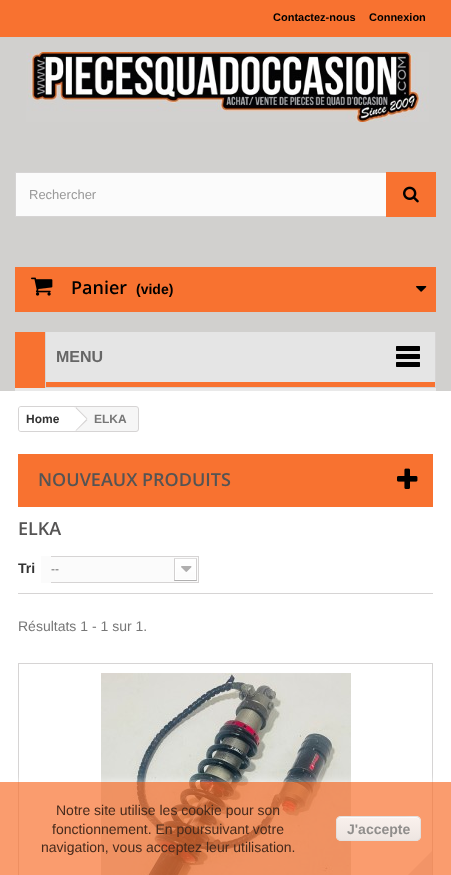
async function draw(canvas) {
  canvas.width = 451
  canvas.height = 875
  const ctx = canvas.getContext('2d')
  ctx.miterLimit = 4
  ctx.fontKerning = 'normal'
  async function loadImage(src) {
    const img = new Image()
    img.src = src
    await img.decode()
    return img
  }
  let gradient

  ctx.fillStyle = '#fff'
  ctx.fillRect(0, 0, 451, 875)
  ctx.fillStyle = '#d1d0ce'
  ctx.fillRect(0, 37, 451, 354)
  ctx.fillStyle = '#f87230'
  ctx.fillRect(0, 0, 451, 37)
  ctx.font = 'bold 11px Liberation Sans'
  ctx.fillStyle = '#000'
  ctx.fillText('Contactez-nous', 273, 21)
  ctx.fillText('Connexion', 369, 21)
  ctx.drawImage(await loadImage('image0.png'), 26, 52, 403, 70)
  ctx.fillStyle = '#fbfbfb'
  ctx.fillRect(16, 173, 370, 43)
  ctx.strokeStyle = '#d6d4d4'
  ctx.strokeRect(15.5, 172.5, 420, 44)
  ctx.font = '13px Liberation Sans'
  ctx.fillStyle = '#999'
  ctx.fillText('Rechercher', 29, 199)
  ctx.fillStyle = '#f87230'
  ctx.fillRect(386, 172, 50, 45)
  ctx.drawImage(await loadImage('image1.png'), 403, 186, 16, 17)
  ctx.fillRect(15, 267, 421, 45)
  ctx.drawImage(await loadImage('image2.png'), 31, 277, 22, 19)
  ctx.font = '600 18px Open Sans'
  ctx.fillStyle = '#000'
  ctx.fillText('Panier', 71, 294)
  ctx.font = 'bold 14px Liberation Sans'
  ctx.fillText('(vide)', 136, 294)
  ctx.drawImage(await loadImage('image3.png'), 416, 286, 11, 6)
  ctx.fillStyle = '#f87230'
  ctx.fillRect(15, 332, 420, 56)
  ctx.fillStyle = '#e9e9e9'
  ctx.fillRect(15, 388, 421, 3)
  ctx.fillStyle = '#d6d4d4'
  ctx.fillRect(435, 332, 1, 56)
  ctx.fillRect(45, 387, 391, 1)
  ctx.fillRect(45, 332, 1, 56)
  ctx.fillStyle = '#e5e5e5'
  ctx.fillRect(46, 332, 389, 50)
  ctx.drawImage(await loadImage('image4.png'), 396, 346, 24, 21)
  ctx.font = 'bold 16px Liberation Sans'
  ctx.fillStyle = '#666'
  ctx.fillText('MENU', 56, 362)
  ctx.fillStyle = '#f6f6f6'
  ctx.beginPath()
  ctx.roundRect(18.5, 406.5, 120, 25, 2.5)
  ctx.fill()
  ctx.stroke()
  ctx.fillStyle = '#fff'
  ctx.beginPath()
  ctx.roundRect(19, 407, 55, 24, [2, 0, 0, 2])
  ctx.fill()
  ctx.font = 'bold 12px Liberation Sans'
  ctx.fillStyle = '#333'
  ctx.fillText('Home', 26, 423)
  ctx.fillStyle = '#fff'
  ctx.beginPath()
  ctx.moveTo(77, 408)
  ctx.lineTo(86.5, 417.5)
  ctx.bezierCurveTo(87.5, 418.5, 87.5, 420, 86.5, 420.5)
  ctx.lineTo(76.5, 431)
  ctx.lineTo(74.5, 431)
  ctx.lineTo(67.5, 424)
  ctx.bezierCurveTo(63.5, 420, 61.5, 420, 65.5, 416)
  ctx.lineTo(74, 408)
  ctx.bezierCurveTo(75, 407, 76, 407, 77, 408)
  ctx.closePath()
  ctx.fill()
  ctx.fillStyle = '#d6d4d4'
  ctx.beginPath()
  ctx.moveTo(76, 407)
  ctx.lineTo(87.5, 418.5)
  ctx.lineTo(86.5, 419)
  ctx.lineTo(75.5, 408)
  ctx.closePath()
  ctx.moveTo(86.5, 419)
  ctx.lineTo(87.5, 420)
  ctx.lineTo(76, 431)
  ctx.lineTo(75.5, 430.5)
  ctx.closePath()
  ctx.fill()
  ctx.fillStyle = '#777'
  ctx.fillText('ELKA', 94, 423)
  ctx.fillStyle = '#f87230'
  ctx.fillRect(18, 454, 415, 53)
  ctx.font = '600 18px Open Sans'
  ctx.fillStyle = '#555454'
  ctx.fillText('NOUVEAUX PRODUITS', 38, 486)
  ctx.drawImage(await loadImage('image5.png'), 397, 468, 21, 21)
  ctx.fillText('ELKA', 18, 535)
  ctx.fillStyle = '#d6d4d4'
  ctx.fillRect(18, 593, 415, 1)
  ctx.font = 'bold 14px Liberation Sans'
  ctx.fillStyle = '#333'
  ctx.fillText('Tri', 18, 573)
  ctx.fillStyle = '#fbfbfb'
  ctx.fillRect(41, 556, 10, 27)
  ctx.drawImage(await loadImage('image6.png'), 51, 556, 148, 27)
  ctx.font = '12px Liberation Sans'
  ctx.fillStyle = '#666'
  ctx.fillText('--', 51, 573)
  ctx.font = '14px Liberation Sans'
  ctx.fillStyle = '#777'
  ctx.fillText('Résultats 1 - 1 sur 1.', 18, 631)
  ctx.strokeRect(18.5, 663.5, 414, 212)
  ctx.drawImage(await loadImage('image7.png'), 101, 673, 250, 202)
  ctx.save()
  ctx.beginPath()
  ctx.rect(217, 777, 215, 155)
  ctx.clip()
  ctx.fillStyle = '#e4e4e6'
  ctx.beginPath()
  ctx.moveTo(437, 846)
  ctx.lineTo(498, 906)
  ctx.lineTo(406, 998)
  ctx.lineTo(345, 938)
  ctx.closePath()
  ctx.fill()
  ctx.restore()
  ctx.save()
  ctx.beginPath()
  ctx.rect(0, 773, 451, 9)
  ctx.clip()
  ctx.fillStyle = '#ffffffb3'
  ctx.filter = 'blur(5px)'
  ctx.beginPath()
  ctx.rect(0, 782, 451, 93)
  ctx.fill()
  ctx.filter = 'none'
  ctx.restore()
  ctx.fillStyle = '#f87230b3'
  ctx.fillRect(0, 782, 451, 93)
  ctx.fillStyle = '#462a1c'
  ctx.fillText('Notre site utilise les cookie pour son', 56, 815)
  ctx.fillText('fonctionnement. En poursuivant votre', 52, 834)
  ctx.fillText('navigation, vous acceptez leur utilisation.', 41, 852)
  ctx.fillStyle = '#f9f9f9b3'
  ctx.beginPath()
  ctx.roundRect(336, 816, 85, 25, 5)
  ctx.fill()
  ctx.save()
  ctx.beginPath()
  ctx.roundRect(336, 816, 85, 25, 5)
  ctx.clip()
  gradient = ctx.createLinearGradient(337, 794, 337, 817)
  gradient.addColorStop(0.05, '#f9f9f9b3')
  gradient.addColorStop(1, '#e9e9e9b3')
  ctx.fillStyle = gradient
  ctx.fillRect(336, 816, 85, 1)
  gradient = ctx.createLinearGradient(337, 817, 337, 840)
  gradient.addColorStop(0.05, '#f9f9f9b3')
  gradient.addColorStop(1, '#e9e9e9b3')
  ctx.fillStyle = gradient
  ctx.fillRect(336, 817, 85, 23)
  gradient = ctx.createLinearGradient(337, 840, 337, 863)
  gradient.addColorStop(0.05, '#f9f9f9b3')
  gradient.addColorStop(1, '#e9e9e9b3')
  ctx.fillStyle = gradient
  ctx.fillRect(336, 840, 85, 1)
  ctx.restore()
  ctx.fillStyle = '#ffffffb3'
  ctx.beginPath()
  ctx.moveTo(341, 818)
  ctx.lineTo(416, 818)
  ctx.bezierCurveTo(418, 818, 420, 820, 420, 822)
  ctx.bezierCurveTo(420, 814, 408, 817, 404, 817)
  ctx.lineTo(354, 817)
  ctx.bezierCurveTo(349, 817, 337, 814, 337, 822)
  ctx.bezierCurveTo(337, 820, 339, 818, 341, 818)
  ctx.closePath()
  ctx.fill()
  ctx.beginPath()
  ctx.roundRect(336.5, 816.5, 84, 24, 4.5)
  ctx.strokeStyle = '#dcdcdcb3'
  ctx.stroke()
  ctx.font = 'bold 14px Liberation Sans'
  ctx.fillStyle = '#908e8c'
  ctx.fillText('J\'accepte', 347, 834)
}

draw(document.querySelector('canvas'))
